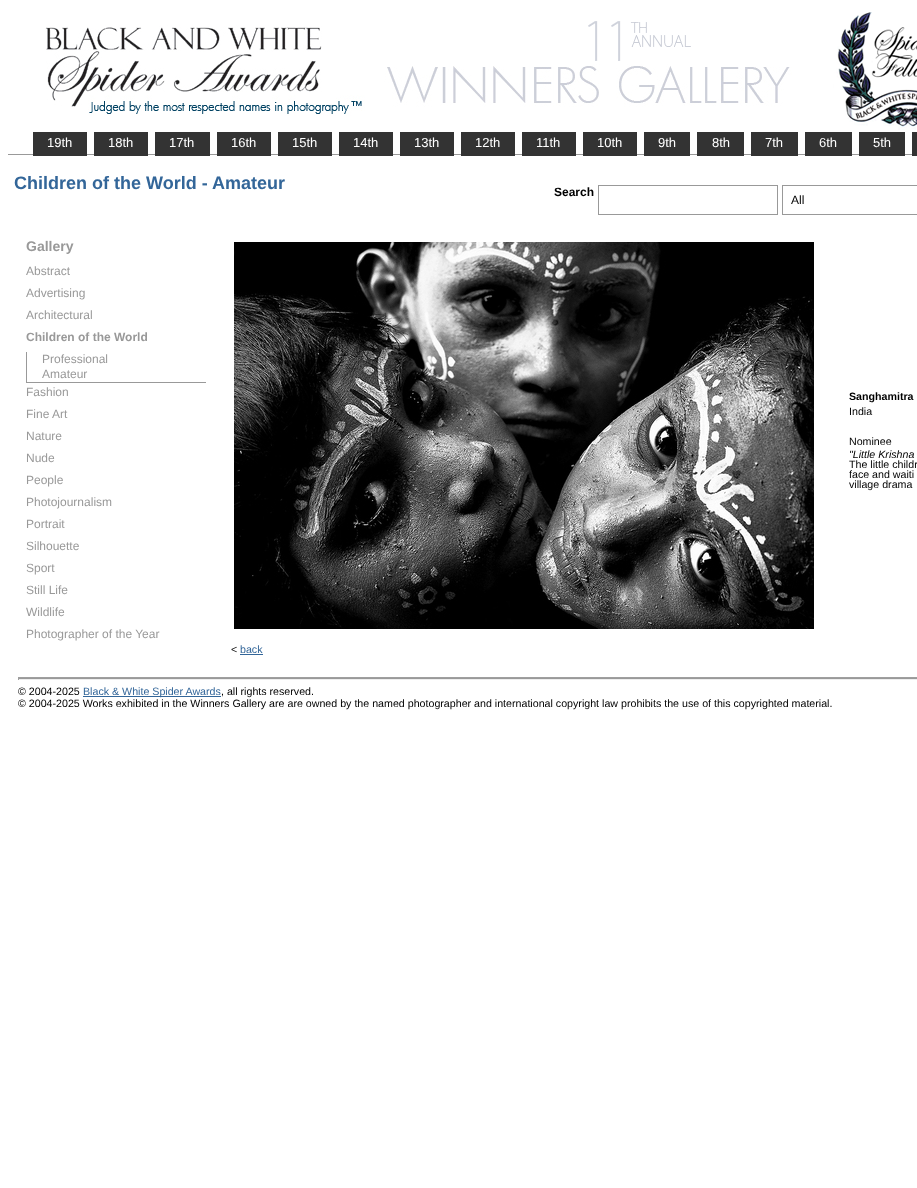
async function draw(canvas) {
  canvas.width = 917
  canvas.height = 1188
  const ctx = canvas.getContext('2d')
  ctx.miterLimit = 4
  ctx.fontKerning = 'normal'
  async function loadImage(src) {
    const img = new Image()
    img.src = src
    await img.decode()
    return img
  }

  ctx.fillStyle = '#fff'
  ctx.fillRect(0, 0, 917, 1188)
  ctx.drawImage(await loadImage('image0.png'), 45, 12, 872, 118)
  ctx.fillStyle = '#999'
  ctx.fillRect(8, 154, 909, 1)
  ctx.fillStyle = '#333'
  ctx.fillRect(33, 132, 54, 24)
  ctx.font = '13px Liberation Sans'
  ctx.fillStyle = '#fff'
  ctx.fillText('19th', 47, 147)
  ctx.fillStyle = '#333'
  ctx.fillRect(94, 132, 54, 24)
  ctx.fillStyle = '#fff'
  ctx.fillText('18th', 108, 147)
  ctx.fillStyle = '#333'
  ctx.fillRect(155, 132, 55, 24)
  ctx.fillStyle = '#fff'
  ctx.fillText('17th', 169, 147)
  ctx.fillStyle = '#333'
  ctx.fillRect(217, 132, 54, 24)
  ctx.fillStyle = '#fff'
  ctx.fillText('16th', 231, 147)
  ctx.fillStyle = '#333'
  ctx.fillRect(278, 132, 54, 24)
  ctx.fillStyle = '#fff'
  ctx.fillText('15th', 292, 147)
  ctx.fillStyle = '#333'
  ctx.fillRect(339, 132, 54, 24)
  ctx.fillStyle = '#fff'
  ctx.fillText('14th', 353, 147)
  ctx.fillStyle = '#333'
  ctx.fillRect(400, 132, 54, 24)
  ctx.fillStyle = '#fff'
  ctx.fillText('13th', 414, 147)
  ctx.fillStyle = '#333'
  ctx.fillRect(461, 132, 54, 24)
  ctx.fillStyle = '#fff'
  ctx.fillText('12th', 475, 147)
  ctx.fillStyle = '#333'
  ctx.fillRect(522, 132, 54, 24)
  ctx.fillStyle = '#fff'
  ctx.fillText('11th', 536, 147)
  ctx.fillStyle = '#333'
  ctx.fillRect(583, 132, 54, 24)
  ctx.fillStyle = '#fff'
  ctx.fillText('10th', 597, 147)
  ctx.fillStyle = '#333'
  ctx.fillRect(644, 132, 46, 24)
  ctx.fillStyle = '#fff'
  ctx.fillText('9th', 658, 147)
  ctx.fillStyle = '#333'
  ctx.fillRect(697, 132, 47, 24)
  ctx.fillStyle = '#fff'
  ctx.fillText('8th', 712, 147)
  ctx.fillStyle = '#333'
  ctx.fillRect(751, 132, 47, 24)
  ctx.fillStyle = '#fff'
  ctx.fillText('7th', 765, 147)
  ctx.fillStyle = '#333'
  ctx.fillRect(805, 132, 47, 24)
  ctx.fillStyle = '#fff'
  ctx.fillText('6th', 819, 147)
  ctx.fillStyle = '#333'
  ctx.fillRect(859, 132, 46, 24)
  ctx.fillStyle = '#fff'
  ctx.fillText('5th', 873, 147)
  ctx.fillStyle = '#333'
  ctx.fillRect(912, 132, 5, 24)
  ctx.font = 'bold 18px Liberation Sans'
  ctx.fillStyle = '#369'
  ctx.fillText('Children of the World - Amateur', 14, 189)
  ctx.font = 'bold 12px Liberation Sans'
  ctx.fillStyle = '#000'
  ctx.fillText('Search', 554, 196)
  ctx.strokeStyle = '#999'
  ctx.strokeRect(598.5, 185.5, 179, 29)
  ctx.strokeRect(782.5, 185.5, 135, 29)
  ctx.font = '12px Liberation Sans'
  ctx.fillText('All', 791, 204)
  ctx.font = 'bold 14px Liberation Sans'
  ctx.fillStyle = '#999'
  ctx.fillText('Gallery', 26, 251)
  ctx.font = '12px Liberation Sans'
  ctx.fillText('Abstract', 26, 275)
  ctx.fillText('Advertising', 26, 297)
  ctx.fillText('Architectural', 26, 319)
  ctx.font = 'bold 12px Liberation Sans'
  ctx.fillText('Children of the World', 26, 341)
  ctx.fillRect(26, 382, 180, 1)
  ctx.fillRect(26, 352, 1, 31)
  ctx.font = '12px Liberation Sans'
  ctx.fillText('Professional', 42, 363)
  ctx.fillText('Amateur', 42, 378)
  ctx.fillText('Fashion', 26, 396)
  ctx.fillText('Fine Art', 26, 418)
  ctx.fillText('Nature', 26, 440)
  ctx.fillText('Nude', 26, 462)
  ctx.fillText('People', 26, 484)
  ctx.fillText('Photojournalism', 26, 506)
  ctx.fillText('Portrait', 26, 528)
  ctx.fillText('Silhouette', 26, 550)
  ctx.fillText('Sport', 26, 572)
  ctx.fillText('Still Life', 26, 594)
  ctx.fillText('Wildlife', 26, 616)
  ctx.fillText('Photographer of the Year', 26, 638)
  ctx.drawImage(await loadImage('image1.png'), 234, 242, 580, 387)
  ctx.font = 'bold 10.67px Liberation Sans'
  ctx.fillStyle = '#000'
  ctx.fillText('Sanghamitra', 849, 400)
  ctx.font = '10.67px Liberation Sans'
  ctx.fillText('India', 849, 415)
  ctx.fillText('Nominee', 849, 445)
  ctx.font = 'italic 10.67px Liberation Sans'
  ctx.fillText('"Little Krishna', 849, 458)
  ctx.font = '10.67px Liberation Sans'
  ctx.fillText('The little childr', 849, 468)
  ctx.fillText('face and waiti', 849, 478)
  ctx.fillText('village drama', 849, 488)
  ctx.fillText('<', 231, 653)
  ctx.fillStyle = '#369'
  ctx.fillText('back', 240, 653)
  ctx.fillRect(240, 654, 23, 1)
  ctx.fillStyle = '#999'
  ctx.fillRect(18, 678, 899, 1)
  ctx.fillStyle = '#9f9f9f'
  ctx.fillRect(18, 677, 899, 1)
  ctx.fillStyle = '#eee'
  ctx.fillRect(18, 679, 899, 1)
  ctx.fillStyle = '#9f9f9f'
  ctx.fillRect(18, 677, 1, 3)
  ctx.fillStyle = '#000'
  ctx.fillText('© 2004-2025', 18, 695)
  ctx.fillStyle = '#369'
  ctx.fillRect(83, 696, 138, 1)
  ctx.fillText('Black & White Spider Awards', 83, 695)
  ctx.fillStyle = '#000'
  ctx.fillText(', all rights reserved.', 221, 695)
  ctx.fillText('© 2004-2025 Works exhibited in the Winners Gallery are are owned by the named photographer and international copyright law prohibits the use of this copyrighted material.', 18, 707)
}

draw(document.querySelector('canvas'))
